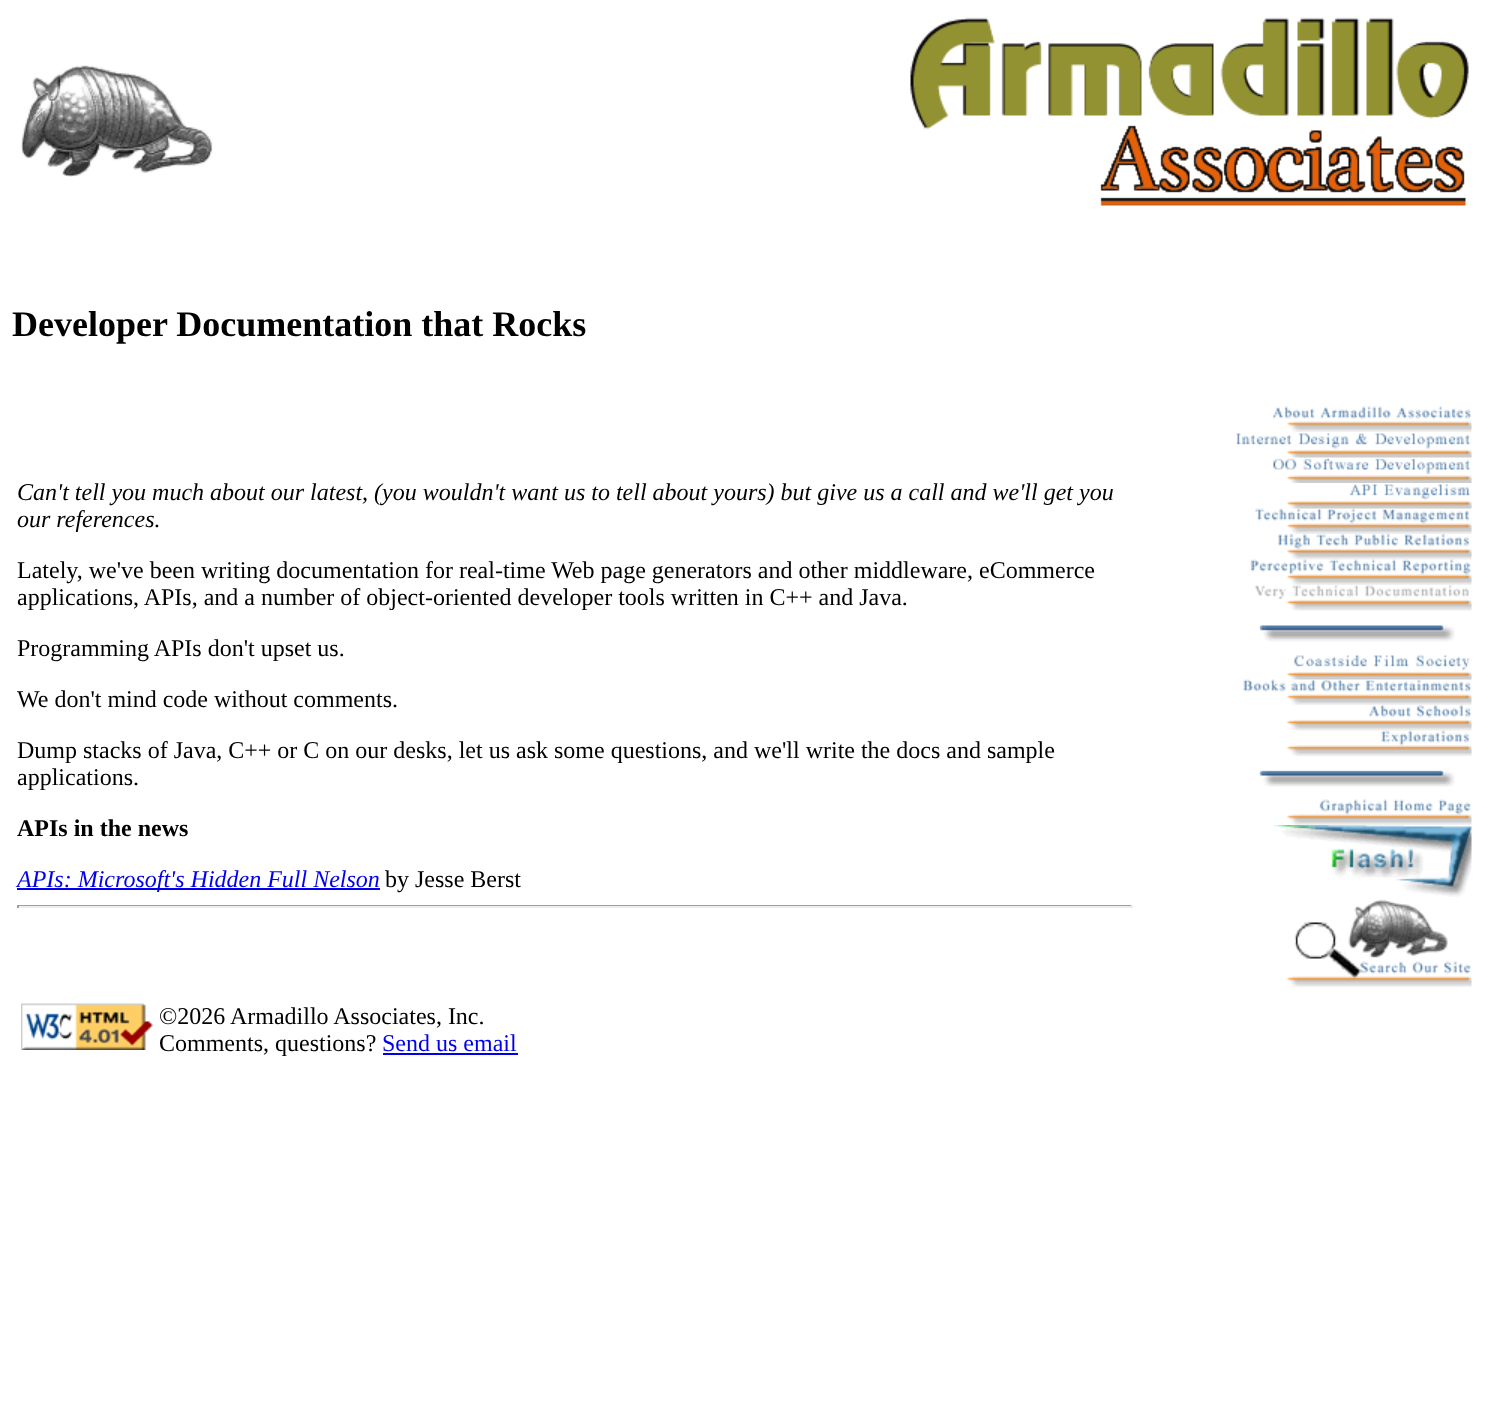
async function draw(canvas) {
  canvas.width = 1488
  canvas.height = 1412
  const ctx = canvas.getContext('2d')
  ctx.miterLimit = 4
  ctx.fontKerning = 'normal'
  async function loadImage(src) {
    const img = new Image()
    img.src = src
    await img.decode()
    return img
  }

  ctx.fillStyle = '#fff'
  ctx.fillRect(0, 0, 1488, 1412)
  ctx.drawImage(await loadImage('image0.png'), 21, 65, 192, 112)
  ctx.drawImage(await loadImage('image1.png'), 910, 17, 559, 189)
  ctx.font = 'bold 36px Liberation Serif'
  ctx.fillStyle = '#000'
  ctx.fillText('Developer Documentation that Rocks', 12, 336)
  ctx.font = 'italic 24px Liberation Serif'
  ctx.fillText('Can\'t tell you much about our latest, (you wouldn\'t want us to tell about yours) but give us a call and we\'ll get you', 17, 500)
  ctx.fillText('our references.', 17, 527)
  ctx.font = '24px Liberation Serif'
  ctx.fillText('Lately, we\'ve been writing documentation for real-time Web page generators and other middleware, eCommerce', 17, 578)
  ctx.fillText('applications, APIs, and a number of object-oriented developer tools written in C++ and Java.', 17, 605)
  ctx.fillText('Programming APIs don\'t upset us.', 17, 656)
  ctx.fillText('We don\'t mind code without comments.', 17, 707)
  ctx.fillText('Dump stacks of Java, C++ or C on our desks, let us ask some questions, and we\'ll write the docs and sample', 17, 758)
  ctx.fillText('applications.', 17, 785)
  ctx.font = 'bold 24px Liberation Serif'
  ctx.fillText('APIs in the news', 17, 836)
  ctx.fillStyle = '#00e'
  ctx.fillRect(17, 888, 363, 2)
  ctx.font = 'italic 24px Liberation Serif'
  ctx.fillText('APIs: Microsoft\'s Hidden Full Nelson', 17, 887)
  ctx.font = '24px Liberation Serif'
  ctx.fillStyle = '#000'
  ctx.fillText('by Jesse Berst', 385, 887)
  ctx.fillStyle = '#9f9f9f'
  ctx.fillRect(17, 905, 1116, 1)
  ctx.fillStyle = '#eee'
  ctx.fillRect(1131, 905, 2, 3)
  ctx.fillRect(17, 906, 1116, 2)
  ctx.fillStyle = '#9f9f9f'
  ctx.fillRect(17, 905, 2, 3)
  ctx.drawImage(await loadImage('image2.png'), 1272, 406, 200, 26)
  ctx.drawImage(await loadImage('image3.png'), 1235, 433, 237, 25)
  ctx.drawImage(await loadImage('image4.png'), 1273, 458, 199, 25)
  ctx.drawImage(await loadImage('image5.png'), 1286, 484, 186, 25)
  ctx.drawImage(await loadImage('image6.png'), 1255, 508, 217, 26)
  ctx.drawImage(await loadImage('image7.png'), 1278, 534, 194, 26)
  ctx.drawImage(await loadImage('image8.png'), 1250, 559, 222, 26)
  ctx.drawImage(await loadImage('image9.png'), 1255, 585, 217, 26)
  ctx.drawImage(await loadImage('image10.png'), 1259, 625, 196, 17)
  ctx.drawImage(await loadImage('image11.png'), 1286, 655, 186, 25)
  ctx.drawImage(await loadImage('image12.png'), 1243, 679, 229, 26)
  ctx.drawImage(await loadImage('image13.png'), 1287, 705, 185, 26)
  ctx.drawImage(await loadImage('image14.png'), 1287, 730, 185, 26)
  ctx.drawImage(await loadImage('image15.png'), 1259, 770, 196, 17)
  ctx.drawImage(await loadImage('image16.png'), 1287, 799, 185, 26)
  ctx.drawImage(await loadImage('image17.png'), 1273, 825, 199, 72)
  ctx.drawImage(await loadImage('image18.png'), 1286, 899, 186, 88)
  ctx.drawImage(await loadImage('image19.png'), 21, 1003, 132, 47)
  ctx.fillStyle = '#000'
  ctx.fillText('©2026 Armadillo Associates, Inc.', 159, 1024)
  ctx.fillText('Comments, questions?', 159, 1051)
  ctx.fillStyle = '#00e'
  ctx.fillText('Send us email', 382, 1051)
  ctx.fillRect(383, 1053, 135, 2)
}

draw(document.querySelector('canvas'))
